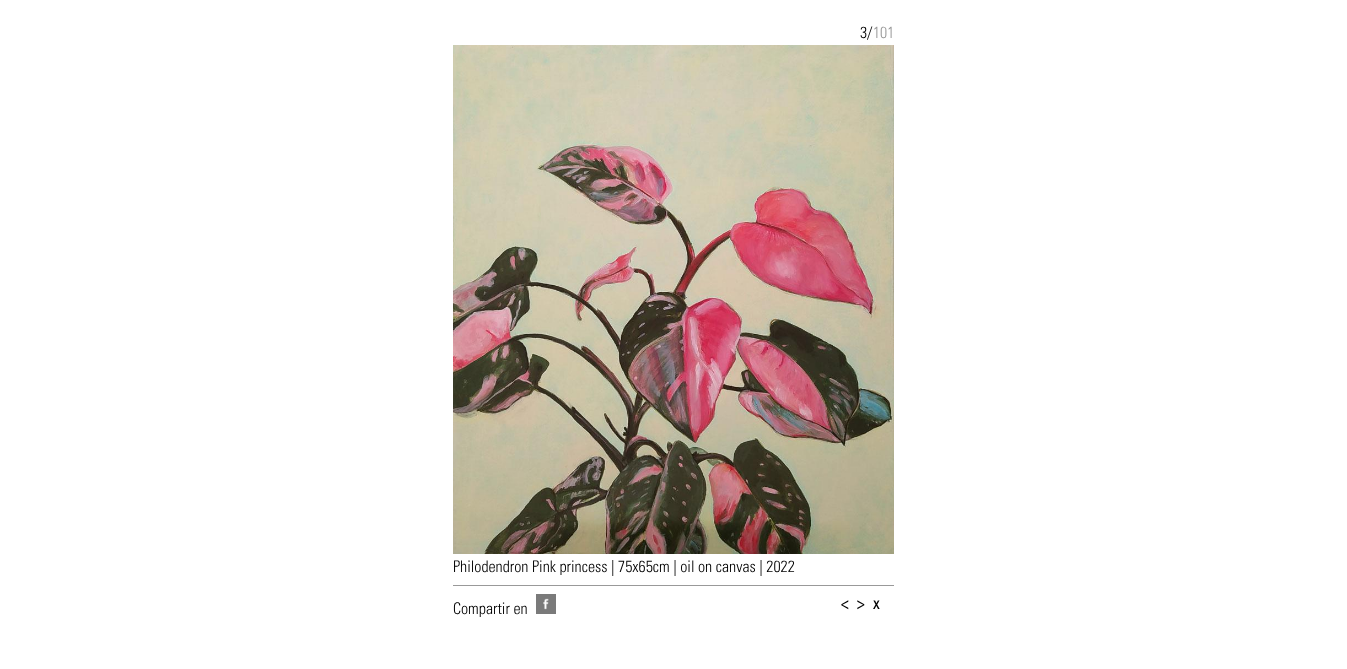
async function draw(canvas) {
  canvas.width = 1347
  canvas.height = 669
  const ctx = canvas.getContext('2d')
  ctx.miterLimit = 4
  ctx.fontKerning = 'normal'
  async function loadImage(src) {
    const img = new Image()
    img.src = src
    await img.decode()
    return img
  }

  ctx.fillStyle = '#fff'
  ctx.fillRect(0, 0, 1347, 669)
  ctx.font = '300 16px Univers'
  ctx.fillStyle = '#000'
  ctx.fillText('3/', 860, 38)
  ctx.fillStyle = '#999'
  ctx.fillText('101', 873, 38)
  ctx.drawImage(await loadImage('image0.png'), 453, 45, 441, 509)
  ctx.fillRect(453, 585, 441, 1)
  ctx.fillStyle = '#000'
  ctx.fillText('Philodendron Pink princess | 75x65cm | oil on canvas | 2022', 453, 572)
  ctx.fillText('Compartir en', 453, 614)
  ctx.drawImage(await loadImage('image1.png'), 536, 594, 20, 20)
  ctx.font = 'bold 16px Univers'
  ctx.fillText('<', 841, 609)
  ctx.fillText('>', 857, 609)
  ctx.fillText('x', 873, 609)
}

draw(document.querySelector('canvas'))
